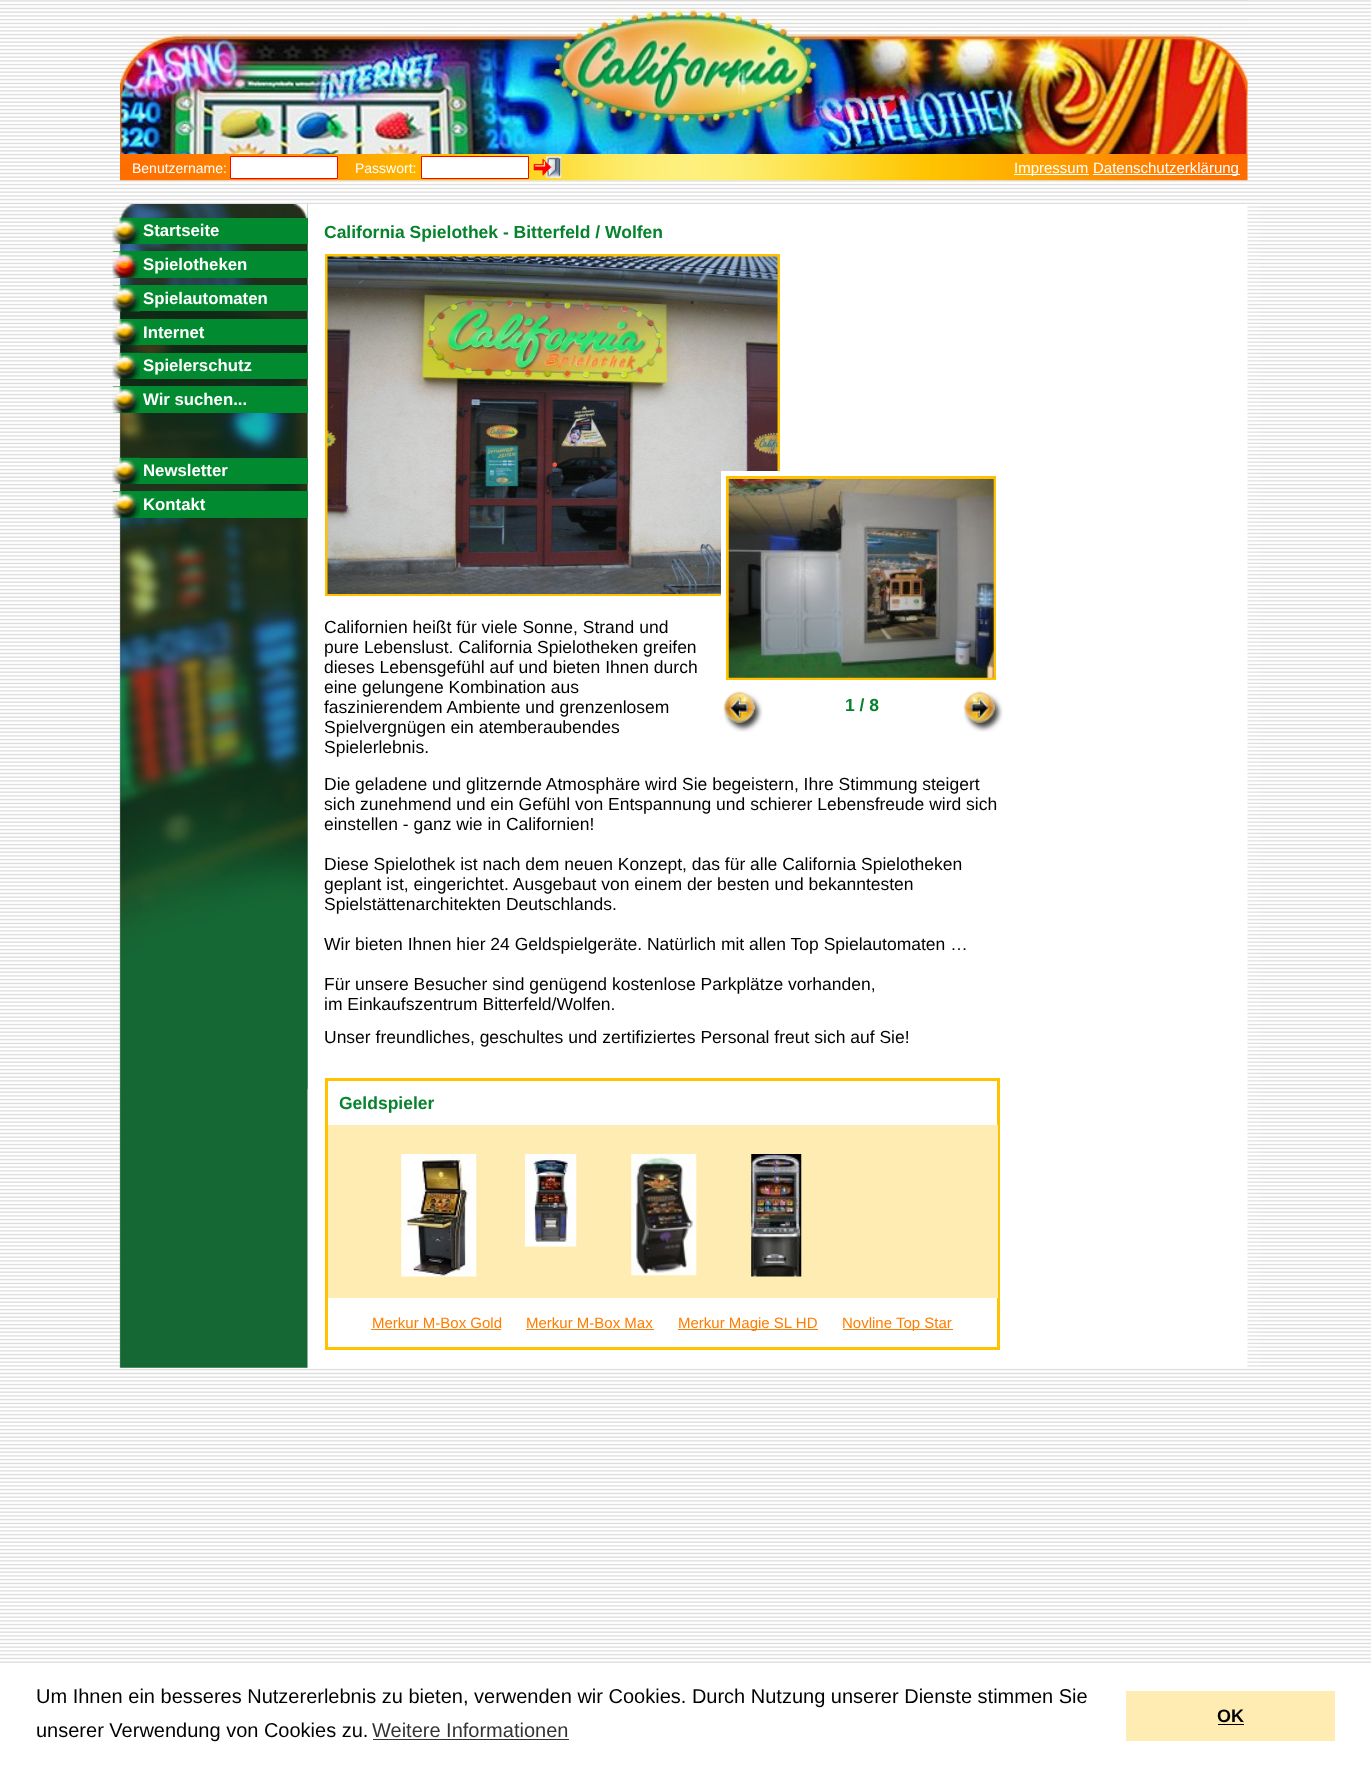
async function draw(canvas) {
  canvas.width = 1371
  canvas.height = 1770
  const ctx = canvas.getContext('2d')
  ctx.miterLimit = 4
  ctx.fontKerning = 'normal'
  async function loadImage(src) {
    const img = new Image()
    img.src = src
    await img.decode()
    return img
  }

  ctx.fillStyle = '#fff'
  ctx.fillRect(0, 0, 1371, 1770)
  ctx.drawImage(await loadImage('image0.png'), 0, 0, 1371, 1663)
  ctx.drawImage(await loadImage('image1.png'), 120, 0, 1128, 154)
  ctx.drawImage(await loadImage('image2.png'), 120, 154, 1128, 27)
  ctx.font = '14px Liberation Sans'
  ctx.fillText('Benutzername:', 132, 173)
  ctx.beginPath()
  ctx.rect(230.5, 156.5, 107, 22)
  ctx.fill()
  ctx.strokeStyle = '#f00'
  ctx.stroke()
  ctx.fillText('Passwort:', 355, 173)
  ctx.beginPath()
  ctx.rect(421.5, 156.5, 107, 22)
  ctx.fill()
  ctx.stroke()
  ctx.drawImage(await loadImage('image3.png'), 533, 156, 29, 22)
  ctx.fillRect(1014, 174, 75, 1)
  ctx.font = '15px Liberation Sans'
  ctx.fillText('Impressum', 1014, 173)
  ctx.fillRect(1093, 174, 147, 1)
  ctx.fillText('Datenschutzerklärung', 1093, 173)
  ctx.drawImage(await loadImage('image4.png'), 119, 204, 901, 1164)
  ctx.drawImage(await loadImage('image5.png'), 113, 204, 195, 885)
  ctx.fillStyle = '#028a31'
  ctx.fillRect(140, 218, 168, 26)
  ctx.drawImage(await loadImage('image6.png'), 112, 217, 28, 27)
  ctx.font = 'bold 16.75px Liberation Sans'
  ctx.fillStyle = '#fff'
  ctx.fillText('Startseite', 143, 236)
  ctx.fillStyle = '#028a31'
  ctx.fillRect(113, 251, 195, 27)
  ctx.drawImage(await loadImage('image7.png'), 112, 251, 27, 27)
  ctx.fillStyle = '#fff'
  ctx.fillText('Spielotheken', 143, 270)
  ctx.fillStyle = '#028a31'
  ctx.fillRect(113, 285, 195, 26)
  ctx.drawImage(await loadImage('image8.png'), 112, 285, 28, 27)
  ctx.fillStyle = '#fff'
  ctx.fillText('Spielautomaten', 143, 304)
  ctx.fillStyle = '#028a31'
  ctx.fillRect(140, 319, 168, 26)
  ctx.drawImage(await loadImage('image9.png'), 112, 319, 28, 27)
  ctx.fillStyle = '#fff'
  ctx.fillText('Internet', 143, 338)
  ctx.fillStyle = '#028a31'
  ctx.fillRect(140, 353, 168, 26)
  ctx.drawImage(await loadImage('image10.png'), 112, 352, 28, 27)
  ctx.fillStyle = '#fff'
  ctx.fillText('Spielerschutz', 143, 371)
  ctx.fillStyle = '#028a31'
  ctx.fillRect(113, 386, 195, 27)
  ctx.drawImage(await loadImage('image11.png'), 112, 386, 28, 27)
  ctx.fillStyle = '#fff'
  ctx.fillText('Wir suchen...', 143, 405)
  ctx.fillStyle = '#028a31'
  ctx.fillRect(140, 458, 168, 26)
  ctx.drawImage(await loadImage('image12.png'), 112, 457, 28, 27)
  ctx.fillStyle = '#fff'
  ctx.fillText('Newsletter', 143, 476)
  ctx.fillStyle = '#028a31'
  ctx.fillRect(113, 491, 195, 27)
  ctx.drawImage(await loadImage('image11.png'), 112, 491, 28, 27)
  ctx.fillStyle = '#fff'
  ctx.fillText('Kontakt', 143, 510)
  ctx.font = 'bold 17.5px Liberation Sans'
  ctx.fillStyle = '#07822d'
  ctx.fillText('California Spielothek - Bitterfeld / Wolfen', 324, 238)
  ctx.strokeStyle = '#ffc100'
  ctx.lineWidth = 3
  ctx.strokeRect(326.5, 255.5, 452, 339)
  ctx.drawImage(await loadImage('image13.png'), 327, 256, 451, 338)
  ctx.font = '17.5px Liberation Sans'
  ctx.fillStyle = '#000'
  ctx.fillText('Californien heißt für viele Sonne, Strand und', 324, 633)
  ctx.fillText('pure Lebenslust. California Spielotheken greifen', 324, 653)
  ctx.fillText('dieses Lebensgefühl auf und bieten Ihnen durch', 324, 673)
  ctx.fillText('eine gelungene Kombination aus', 324, 693)
  ctx.fillText('faszinierendem Ambiente und grenzenlosem', 324, 713)
  ctx.fillText('Spielvergnügen ein atemberaubendes', 324, 733)
  ctx.fillText('Spielerlebnis.', 324, 753)
  ctx.fillStyle = '#fff'
  ctx.fillRect(721, 471, 59, 125)
  ctx.strokeRect(727.5, 477.5, 267, 201)
  ctx.drawImage(await loadImage('image14.png'), 728, 479, 266, 199)
  ctx.drawImage(await loadImage('image15.png'), 723, 691, 40, 41)
  ctx.font = 'bold 17.5px Liberation Sans'
  ctx.fillStyle = '#07822d'
  ctx.fillText('1 / 8', 845, 711)
  ctx.drawImage(await loadImage('image16.png'), 963, 691, 40, 41)
  ctx.font = '17.5px Liberation Sans'
  ctx.fillStyle = '#000'
  ctx.fillText('Die geladene und glitzernde Atmosphäre wird Sie begeistern, Ihre Stimmung steigert', 324, 790)
  ctx.fillText('sich zunehmend und ein Gefühl von Entspannung und schierer Lebensfreude wird sich', 324, 810)
  ctx.fillText('einstellen - ganz wie in Californien!', 324, 830)
  ctx.fillText('Diese Spielothek ist nach dem neuen Konzept, das für alle California Spielotheken', 324, 870)
  ctx.fillText('geplant ist, eingerichtet. Ausgebaut von einem der besten und bekanntesten', 324, 890)
  ctx.fillText('Spielstättenarchitekten Deutschlands.', 324, 910)
  ctx.fillText('Wir bieten Ihnen hier 24 Geldspielgeräte. Natürlich mit allen Top Spielautomaten …', 324, 950)
  ctx.fillText('Für unsere Besucher sind genügend kostenlose Parkplätze vorhanden,', 324, 990)
  ctx.fillText('im Einkaufszentrum Bitterfeld/Wolfen.', 324, 1010)
  ctx.fillText('Unser freundliches, geschultes und zertifiziertes Personal freut sich auf Sie!', 324, 1043)
  ctx.strokeRect(326.5, 1079.5, 672, 269)
  ctx.font = 'bold 17.5px Liberation Sans'
  ctx.fillStyle = '#07822d'
  ctx.fillText('Geldspieler', 339, 1109)
  ctx.fillStyle = '#ffecb2'
  ctx.fillRect(328, 1125, 670, 173)
  ctx.drawImage(await loadImage('image17.png'), 401, 1154, 76, 123)
  ctx.drawImage(await loadImage('image18.png'), 525, 1154, 52, 93)
  ctx.drawImage(await loadImage('image19.png'), 631, 1154, 66, 122)
  ctx.drawImage(await loadImage('image20.png'), 751, 1154, 51, 123)
  ctx.font = '15px Liberation Sans'
  ctx.fillStyle = '#ff7d00'
  ctx.fillText('Merkur M-Box Gold', 372, 1328)
  ctx.fillRect(371, 1329, 130, 1)
  ctx.fillText('Merkur M-Box Max', 526, 1328)
  ctx.fillRect(526, 1329, 128, 1)
  ctx.fillRect(678, 1329, 140, 1)
  ctx.fillText('Merkur Magie SL HD', 678, 1328)
  ctx.fillRect(843, 1329, 110, 1)
  ctx.fillText('Novline Top Star', 842, 1328)
  ctx.fillStyle = '#fff'
  ctx.fillRect(1020, 204, 240, 1163)
  ctx.drawImage(await loadImage('image21.png'), 1247, 206, 13, 1161)
  ctx.font = '20px Liberation Sans'
  ctx.fillStyle = '#000'
  ctx.fillText('Um Ihnen ein besseres Nutzererlebnis zu bieten, verwenden wir Cookies. Durch Nutzung unserer Dienste stimmen Sie', 36, 1703)
  ctx.fillText('unserer Verwendung von Cookies zu.', 36, 1737)
  ctx.fillStyle = '#333'
  ctx.fillText('Weitere Informationen', 372, 1737)
  ctx.fillRect(373, 1739, 196, 1)
  ctx.fillStyle = '#ffecb2'
  ctx.fillRect(1126, 1691, 209, 50)
  ctx.font = 'bold 18px Liberation Sans'
  ctx.fillStyle = '#000'
  ctx.fillText('OK', 1217, 1722)
  ctx.fillRect(1218, 1724, 26, 1)
}

draw(document.querySelector('canvas'))
